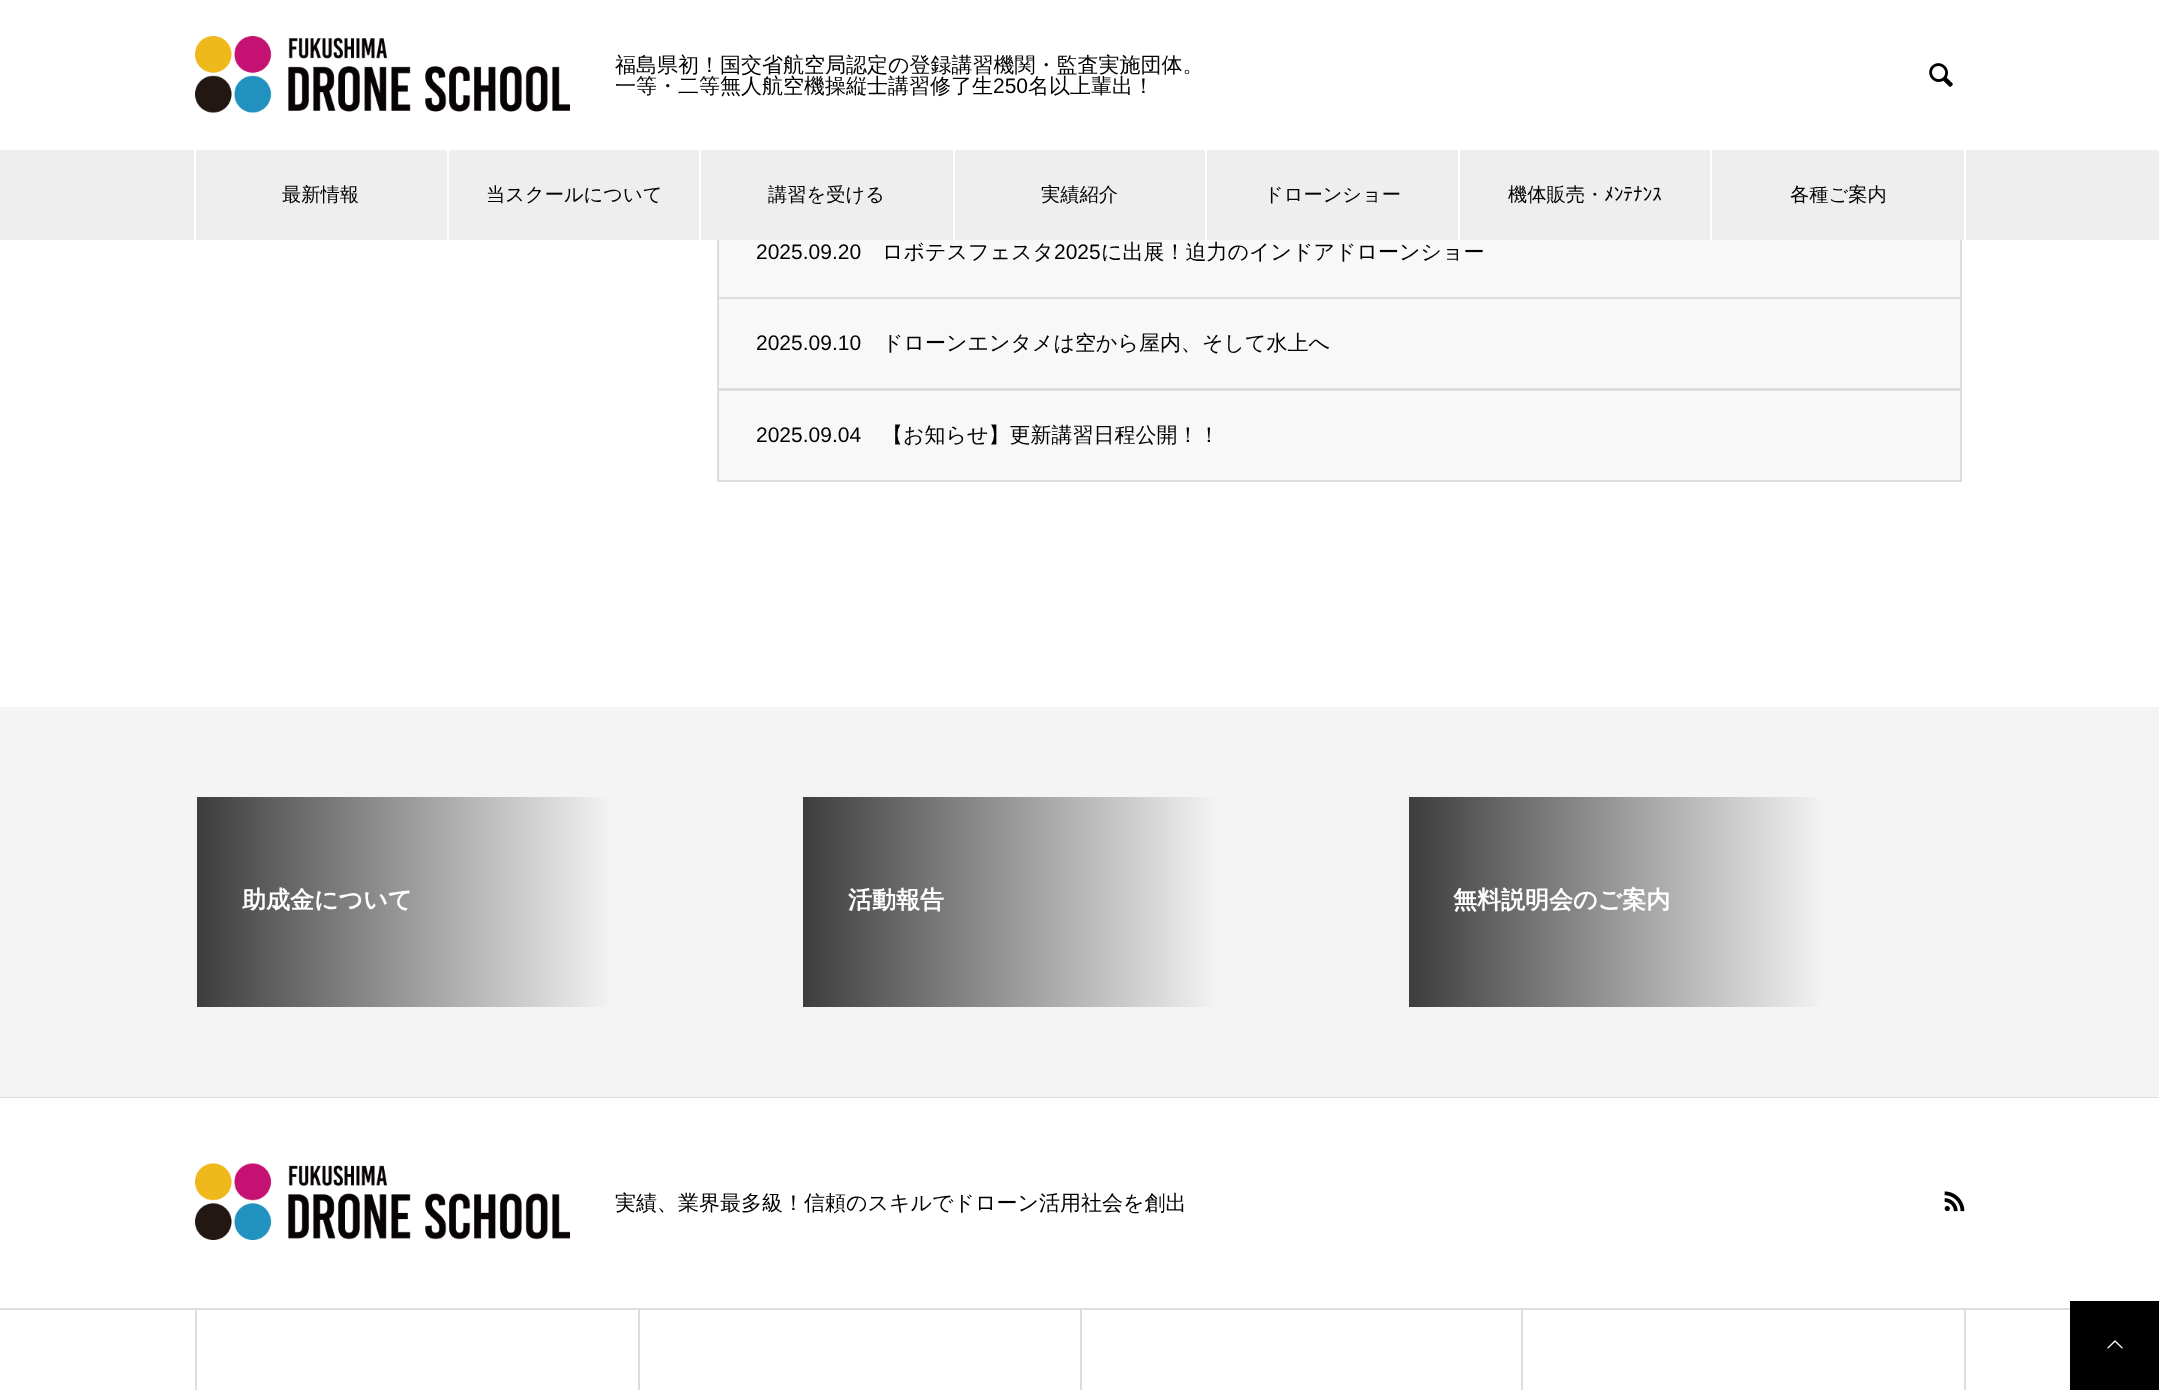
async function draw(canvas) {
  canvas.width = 2159
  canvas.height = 1390
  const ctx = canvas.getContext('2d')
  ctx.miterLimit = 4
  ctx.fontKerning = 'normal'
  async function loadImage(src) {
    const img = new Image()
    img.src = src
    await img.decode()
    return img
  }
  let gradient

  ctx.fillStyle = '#fff'
  ctx.fillRect(0, 0, 2159, 1390)
  ctx.drawImage(await loadImage('image0.png'), 195, 36, 375, 77)
  ctx.font = '500 21px WenQuanYi Zen Hei'
  ctx.fillStyle = '#000'
  ctx.fillText('福島県初！国交省航空局認定の登録講習機関・監査実施団体。', 615, 72)
  ctx.fillText('一等・二等無人航空機操縦士講習修了生', 615, 93)
  ctx.font = '21px Liberation Sans'
  ctx.fillText('250', 993, 93)
  ctx.font = '500 21px WenQuanYi Zen Hei'
  ctx.fillText('名以上輩出！', 1028, 93)
  ctx.drawImage(await loadImage('image1.png'), 1929, 63, 24, 24)
  ctx.fillStyle = '#f8f8f8'
  ctx.fillRect(719, 240, 1241, 57)
  ctx.strokeStyle = '#ddd'
  ctx.lineWidth = 2
  ctx.strokeRect(718, 207, 1243, 91)
  ctx.fillStyle = '#eee'
  ctx.fillRect(0, 150, 2159, 90)
  ctx.fillStyle = '#fff'
  ctx.fillRect(447, 150, 2, 90)
  ctx.fillRect(194, 150, 2, 90)
  ctx.font = '500 19.25px WenQuanYi Zen Hei'
  ctx.fillStyle = '#000'
  ctx.fillText('最新情報', 282, 201)
  ctx.fillStyle = '#fff'
  ctx.fillRect(699, 150, 2, 90)
  ctx.fillStyle = '#000'
  ctx.fillText('当スクールについて', 486, 201)
  ctx.fillText('講習を受ける', 768, 201)
  ctx.fillStyle = '#fff'
  ctx.fillRect(1205, 150, 2, 90)
  ctx.fillRect(953, 150, 2, 90)
  ctx.fillStyle = '#000'
  ctx.fillText('実績紹介', 1041, 201)
  ctx.fillStyle = '#fff'
  ctx.fillRect(1458, 150, 2, 90)
  ctx.fillStyle = '#000'
  ctx.fillText('ドローンショー', 1264, 201)
  ctx.fillStyle = '#fff'
  ctx.fillRect(1710, 150, 2, 90)
  ctx.fillStyle = '#000'
  ctx.fillText('機体販売・', 1508, 201)
  ctx.font = '19.25px IPAPGothic'
  ctx.fillText('ﾒﾝﾃﾅﾝｽ', 1604, 201)
  ctx.fillStyle = '#fff'
  ctx.fillRect(1964, 150, 2, 90)
  ctx.font = '500 19.25px WenQuanYi Zen Hei'
  ctx.fillStyle = '#000'
  ctx.fillText('各種ご案内', 1790, 201)
  ctx.font = '21px Liberation Sans'
  ctx.fillText('2025.09.20', 756, 259)
  ctx.font = '500 21px WenQuanYi Zen Hei'
  ctx.fillText('ロボテスフェスタ', 882, 259)
  ctx.font = '21px Liberation Sans'
  ctx.fillText('2025', 1054, 259)
  ctx.font = '500 21px WenQuanYi Zen Hei'
  ctx.fillText('に出展！迫力のインドアドローンショー', 1101, 259)
  ctx.fillStyle = '#f8f8f8'
  ctx.beginPath()
  ctx.rect(718, 298, 1243, 91)
  ctx.fill()
  ctx.stroke()
  ctx.font = '21px Liberation Sans'
  ctx.fillStyle = '#000'
  ctx.fillText('2025.09.10', 756, 350)
  ctx.font = '500 21px WenQuanYi Zen Hei'
  ctx.fillText('ドローンエンタメは空から屋内、そして水上へ', 882, 350)
  ctx.fillStyle = '#f8f8f8'
  ctx.beginPath()
  ctx.rect(718, 390, 1243, 91)
  ctx.fill()
  ctx.stroke()
  ctx.font = '21px Liberation Sans'
  ctx.fillStyle = '#000'
  ctx.fillText('2025.09.04', 756, 442)
  ctx.font = '500 21px WenQuanYi Zen Hei'
  ctx.fillText('【お知らせ】更新講習日程公開！！', 882, 442)
  ctx.fillStyle = '#f4f4f4'
  ctx.fillRect(0, 707, 2159, 390)
  ctx.fillStyle = '#ddd'
  ctx.fillRect(0, 1097, 2159, 1)
  gradient = ctx.createLinearGradient(197, 902, 752, 902)
  gradient.addColorStop(0, '#3d3d3d')
  gradient.addColorStop(0.75, '#f4f4f4')
  ctx.fillStyle = gradient
  ctx.fillRect(197, 797, 411, 210)
  ctx.font = 'bold 24px WenQuanYi Zen Hei'
  ctx.fillStyle = '#fff'
  ctx.fillText('助成金について', 242, 908)
  gradient = ctx.createLinearGradient(803, 902, 1358, 902)
  gradient.addColorStop(0, '#3d3d3d')
  gradient.addColorStop(0.75, '#f4f4f4')
  ctx.fillStyle = gradient
  ctx.fillRect(803, 797, 411, 210)
  ctx.fillStyle = '#fff'
  ctx.fillText('活動報告', 848, 908)
  gradient = ctx.createLinearGradient(1409, 902, 1964, 902)
  gradient.addColorStop(0, '#3d3d3d')
  gradient.addColorStop(0.75, '#f4f4f4')
  ctx.fillStyle = gradient
  ctx.fillRect(1409, 797, 411, 210)
  ctx.fillStyle = '#fff'
  ctx.fillText('無料説明会のご案内', 1453, 908)
  ctx.fillStyle = '#ddd'
  ctx.fillRect(0, 1308, 2070, 2)
  ctx.drawImage(await loadImage('image2.png'), 195, 1163, 375, 77)
  ctx.font = '500 21px WenQuanYi Zen Hei'
  ctx.fillStyle = '#000'
  ctx.fillText('実績、業界最多級！信頼のスキルでドローン活用社会を創出', 615, 1210)
  ctx.drawImage(await loadImage('image3.png'), 1944, 1191, 21, 21)
  ctx.fillStyle = '#ddd'
  ctx.fillRect(195, 1310, 2, 80)
  ctx.fillRect(638, 1310, 2, 80)
  ctx.fillRect(1080, 1310, 2, 80)
  ctx.fillRect(1521, 1310, 2, 80)
  ctx.fillRect(1964, 1310, 2, 80)
  ctx.fillStyle = '#000'
  ctx.fillRect(2070, 1301, 89, 89)
  ctx.drawImage(await loadImage('image4.png'), 2107, 1340, 16, 9)
}

draw(document.querySelector('canvas'))
